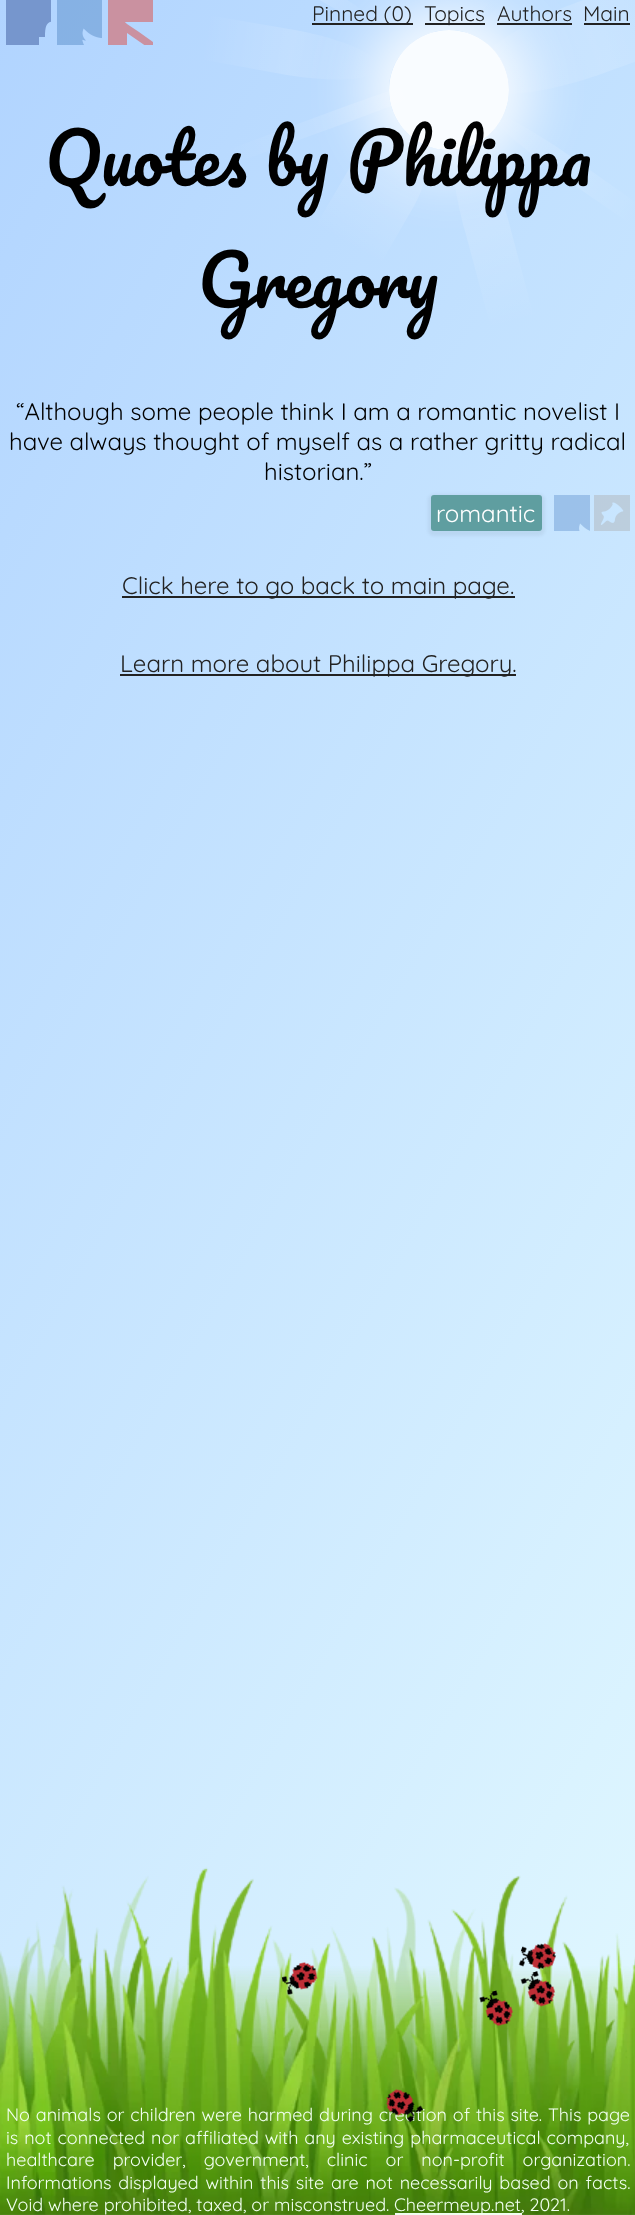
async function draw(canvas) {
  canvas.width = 635
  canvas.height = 2215
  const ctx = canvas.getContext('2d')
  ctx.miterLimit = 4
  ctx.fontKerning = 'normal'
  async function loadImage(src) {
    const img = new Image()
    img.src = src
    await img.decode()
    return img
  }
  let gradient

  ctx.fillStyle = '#fff'
  ctx.fillRect(0, 0, 635, 2215)
  gradient = ctx.createLinearGradient(-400, 693, 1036, 1522)
  gradient.addColorStop(0, '#b1d4ff')
  gradient.addColorStop(1, '#e2f9ff')
  ctx.fillStyle = gradient
  ctx.fillRect(0, 0, 635, 2215)
  ctx.save()
  ctx.beginPath()
  ctx.moveTo(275, 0)
  ctx.lineTo(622, 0)
  ctx.lineTo(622, 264)
  ctx.lineTo(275, 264)
  ctx.closePath()
  ctx.moveTo(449, 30)
  ctx.bezierCurveTo(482, 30, 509, 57, 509, 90)
  ctx.bezierCurveTo(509, 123, 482, 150, 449, 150)
  ctx.bezierCurveTo(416, 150, 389, 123, 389, 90)
  ctx.bezierCurveTo(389, 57, 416, 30, 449, 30)
  ctx.closePath()
  ctx.clip('evenodd')
  ctx.fillStyle = '#ffffffe6'
  ctx.filter = 'blur(30px)'
  ctx.beginPath()
  ctx.roundRect(366, 8, 165, 165, 82.5)
  ctx.fill()
  ctx.filter = 'none'
  ctx.restore()
  ctx.fillStyle = '#ffffffe6'
  ctx.beginPath()
  ctx.arc(449, 90, 60, 0, 2 * Math.PI)
  ctx.fill()
  gradient = ctx.createLinearGradient(474, 27, 571, -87)
  gradient.addColorStop(0, '#cae4ff00')
  gradient.addColorStop(0.5, '#cae4ffcc')
  gradient.addColorStop(1, '#cae4ff00')
  ctx.fillStyle = gradient
  ctx.beginPath()
  ctx.moveTo(474, 27)
  ctx.bezierCurveTo(472, 25, 491, -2, 518, -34)
  ctx.lineTo(566, -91)
  ctx.lineTo(575, -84)
  ctx.lineTo(527, -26)
  ctx.bezierCurveTo(500, 6, 477, 30, 474, 27)
  ctx.closePath()
  ctx.fill()
  gradient = ctx.createLinearGradient(471, 81, 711, -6.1)
  gradient.addColorStop(0, '#ffffff00')
  gradient.addColorStop(0.5, '#ffffff24')
  gradient.addColorStop(1, '#ffffff00')
  ctx.fillStyle = gradient
  ctx.beginPath()
  ctx.moveTo(471, 81)
  ctx.bezierCurveTo(464, 62, 512, 26, 578, 2)
  ctx.lineTo(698, -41)
  ctx.lineTo(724, 29)
  ctx.lineTo(604, 73)
  ctx.bezierCurveTo(538, 97, 479, 101, 471, 81)
  ctx.closePath()
  ctx.fill()
  gradient = ctx.createLinearGradient(415, 129, 348, 246)
  gradient.addColorStop(0, '#ffffff00')
  gradient.addColorStop(0.5, '#ffffff24')
  gradient.addColorStop(1, '#ffffff00')
  ctx.fillStyle = gradient
  ctx.beginPath()
  ctx.moveTo(415, 129)
  ctx.bezierCurveTo(433, 139, 432, 174, 414, 206)
  ctx.lineTo(380, 265)
  ctx.lineTo(315, 227)
  ctx.lineTo(349, 169)
  ctx.bezierCurveTo(367, 136, 397, 119, 415, 129)
  ctx.closePath()
  ctx.fill()
  gradient = ctx.createLinearGradient(491, 113, 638, 217)
  gradient.addColorStop(0, '#ffffff00')
  gradient.addColorStop(0.5, '#ffffff24')
  gradient.addColorStop(1, '#ffffff00')
  ctx.fillStyle = gradient
  ctx.beginPath()
  ctx.moveTo(491, 113)
  ctx.bezierCurveTo(494, 109, 530, 128, 570, 156)
  ctx.lineTo(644, 208)
  ctx.lineTo(632, 225)
  ctx.lineTo(558, 174)
  ctx.bezierCurveTo(518, 145, 487, 118, 491, 113)
  ctx.closePath()
  ctx.fill()
  gradient = ctx.createLinearGradient(459, 124, 513, 326)
  gradient.addColorStop(0, '#ffffff00')
  gradient.addColorStop(0.5, '#ffffff24')
  gradient.addColorStop(1, '#ffffff00')
  ctx.fillStyle = gradient
  ctx.beginPath()
  ctx.moveTo(459, 124)
  ctx.bezierCurveTo(471, 120, 493, 163, 508, 219)
  ctx.lineTo(535, 321)
  ctx.lineTo(492, 332)
  ctx.lineTo(465, 231)
  ctx.bezierCurveTo(450, 175, 447, 127, 459, 124)
  ctx.closePath()
  ctx.fill()
  gradient = ctx.createLinearGradient(478, 66, 224, 159)
  gradient.addColorStop(0, '#ffffff00')
  gradient.addColorStop(0.5, '#ffffff24')
  gradient.addColorStop(1, '#ffffff00')
  ctx.fillStyle = gradient
  ctx.beginPath()
  ctx.moveTo(478, 66)
  ctx.bezierCurveTo(480, 70, 424, 94, 354, 120)
  ctx.lineTo(227, 166)
  ctx.lineTo(222, 152)
  ctx.lineTo(349, 105)
  ctx.bezierCurveTo(419, 80, 477, 62, 478, 66)
  ctx.closePath()
  ctx.fill()
  gradient = ctx.createLinearGradient(380, 68, 203, 37)
  gradient.addColorStop(0, '#ffffff00')
  gradient.addColorStop(0.5, '#ffffff24')
  gradient.addColorStop(1, '#ffffff00')
  ctx.fillStyle = gradient
  ctx.beginPath()
  ctx.moveTo(380, 68)
  ctx.bezierCurveTo(378, 80, 336, 83, 287, 75)
  ctx.lineTo(199, 59)
  ctx.lineTo(207, 15)
  ctx.lineTo(295, 30)
  ctx.bezierCurveTo(344, 39, 382, 56, 380, 68)
  ctx.closePath()
  ctx.fill()
  gradient = ctx.createLinearGradient(373, 23, 269, -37)
  gradient.addColorStop(0, '#c6e1ff00')
  gradient.addColorStop(0.5, '#c6e1ffcc')
  gradient.addColorStop(1, '#c6e1ff00')
  ctx.fillStyle = gradient
  ctx.beginPath()
  ctx.moveTo(373, 22)
  ctx.bezierCurveTo(371, 26, 346, 16, 318, -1)
  ctx.lineTo(266, -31)
  ctx.lineTo(273, -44)
  ctx.lineTo(325, -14)
  ctx.bezierCurveTo(354, 3, 375, 19, 373, 22)
  ctx.closePath()
  ctx.fill()
  ctx.save()
  ctx.beginPath()
  ctx.rect(6, 0, 45, 45)
  ctx.clip()
  ctx.fillStyle = '#7696cd'
  ctx.beginPath()
  ctx.moveTo(6, 0)
  ctx.lineTo(96, 0)
  ctx.lineTo(96, 90)
  ctx.lineTo(6, 90)
  ctx.closePath()
  ctx.moveTo(55, 69)
  ctx.lineTo(55, 45)
  ctx.lineTo(62, 45)
  ctx.lineTo(62, 37)
  ctx.lineTo(55, 37)
  ctx.bezierCurveTo(55, 29, 54, 29, 62, 29)
  ctx.lineTo(62, 21)
  ctx.bezierCurveTo(48, 21, 45, 21, 45, 37)
  ctx.lineTo(39, 37)
  ctx.lineTo(39, 45)
  ctx.lineTo(45, 45)
  ctx.lineTo(45, 69)
  ctx.closePath()
  ctx.fill('evenodd')
  ctx.restore()
  ctx.drawImage(await loadImage('image0.png'), 57, 0, 45, 45)
  ctx.save()
  ctx.beginPath()
  ctx.rect(108, 0, 45, 45)
  ctx.clip()
  ctx.fillStyle = '#ca91a0'
  ctx.beginPath()
  ctx.moveTo(108, 0)
  ctx.lineTo(198, 0)
  ctx.lineTo(198, 90)
  ctx.lineTo(108, 90)
  ctx.closePath()
  ctx.moveTo(139, 32)
  ctx.lineTo(153, 42)
  ctx.lineTo(181, 22)
  ctx.lineTo(127, 22)
  ctx.bezierCurveTo(124, 22, 125, 22, 127, 24)
  ctx.closePath()
  ctx.moveTo(127, 68)
  ctx.lineTo(179, 68)
  ctx.lineTo(179, 33)
  ctx.lineTo(153, 51)
  ctx.lineTo(127, 33)
  ctx.closePath()
  ctx.fill('evenodd')
  ctx.restore()
  ctx.fillStyle = '#222'
  ctx.fillRect(312, 23, 101, 2)
  ctx.font = '300 21px Quicksand'
  ctx.fillText('Pinned (0)', 312, 21)
  ctx.fillRect(425, 23, 60, 2)
  ctx.fillText('Topics', 424, 21)
  ctx.fillText('Authors', 497, 21)
  ctx.fillRect(497, 23, 75, 2)
  ctx.fillText('Main', 583, 21)
  ctx.fillRect(584, 23, 46, 2)
  ctx.font = '69px Pacifico'
  ctx.fillStyle = '#000'
  ctx.fillText('Quotes by Philippa', 45, 186)
  ctx.fillText('Gregory', 198, 308)
  ctx.font = '300 24px Quicksand'
  ctx.fillText('“Although some people think I am a romantic novelist I', 16, 420)
  ctx.fillText('have always thought of myself as a rather gritty radical', 9, 450)
  ctx.fillText('historian.”', 264, 480)
  ctx.fillStyle = '#0000000d'
  ctx.filter = 'blur(1.5px)'
  ctx.beginPath()
  ctx.roundRect(428, 494, 117, 42, 6)
  ctx.fill()
  ctx.filter = 'none'
  ctx.fillStyle = '#5f9ea0'
  ctx.beginPath()
  ctx.roundRect(431, 495, 111, 36, 3)
  ctx.fill()
  ctx.fillStyle = '#fff'
  ctx.fillText('romantic', 436, 522)
  ctx.drawImage(await loadImage('image1.png'), 554, 495, 36, 36)
  ctx.drawImage(await loadImage('image2.png'), 594, 495, 36, 36)
  ctx.fillStyle = '#222'
  ctx.fillRect(122, 596, 393, 2)
  ctx.fillText('Click here to go back to main page.', 122, 594)
  ctx.fillRect(120, 674, 396, 2)
  ctx.fillText('Learn more about Philippa Gregory.', 120, 672)
  ctx.drawImage(await loadImage('image8.png'), 0, 1867, 635, 348)
  ctx.drawImage(await loadImage('image3.png'), 518, 1943, 39, 27)
  ctx.drawImage(await loadImage('image4.png'), 281, 1962, 37, 33)
  ctx.drawImage(await loadImage('image5.png'), 479, 1990, 34, 36)
  ctx.drawImage(await loadImage('image6.png'), 520, 1971, 36, 36)
  ctx.wordSpacing = '0.9px'
  ctx.font = '300 18px Quicksand'
  ctx.fillStyle = '#f0fff0'
  ctx.fillText('No animals or children were harmed during creation of this site. This page', 6, 2121)
  ctx.drawImage(await loadImage('image7.png'), 386, 2089, 38, 34)
  ctx.wordSpacing = '1px'
  ctx.fillText('is not connected nor affiliated with any existing pharmaceutical company,', 6, 2144)
  ctx.wordSpacing = '13px'
  ctx.fillText('healthcare provider, government, clinic or non-profit organization.', 6, 2166)
  ctx.wordSpacing = '1.9px'
  ctx.fillText('Informations displayed within this site are not necessarily based on facts.', 6, 2189)
  ctx.wordSpacing = '0px'
  ctx.fillText('Void where prohibited, taxed, or misconstrued.', 6, 2211)
  ctx.fillRect(395, 2213, 127, 2)
  ctx.fillText('Cheermeup.net', 394, 2211)
  ctx.fillText(', 2021.', 521, 2211)
}

draw(document.querySelector('canvas'))
